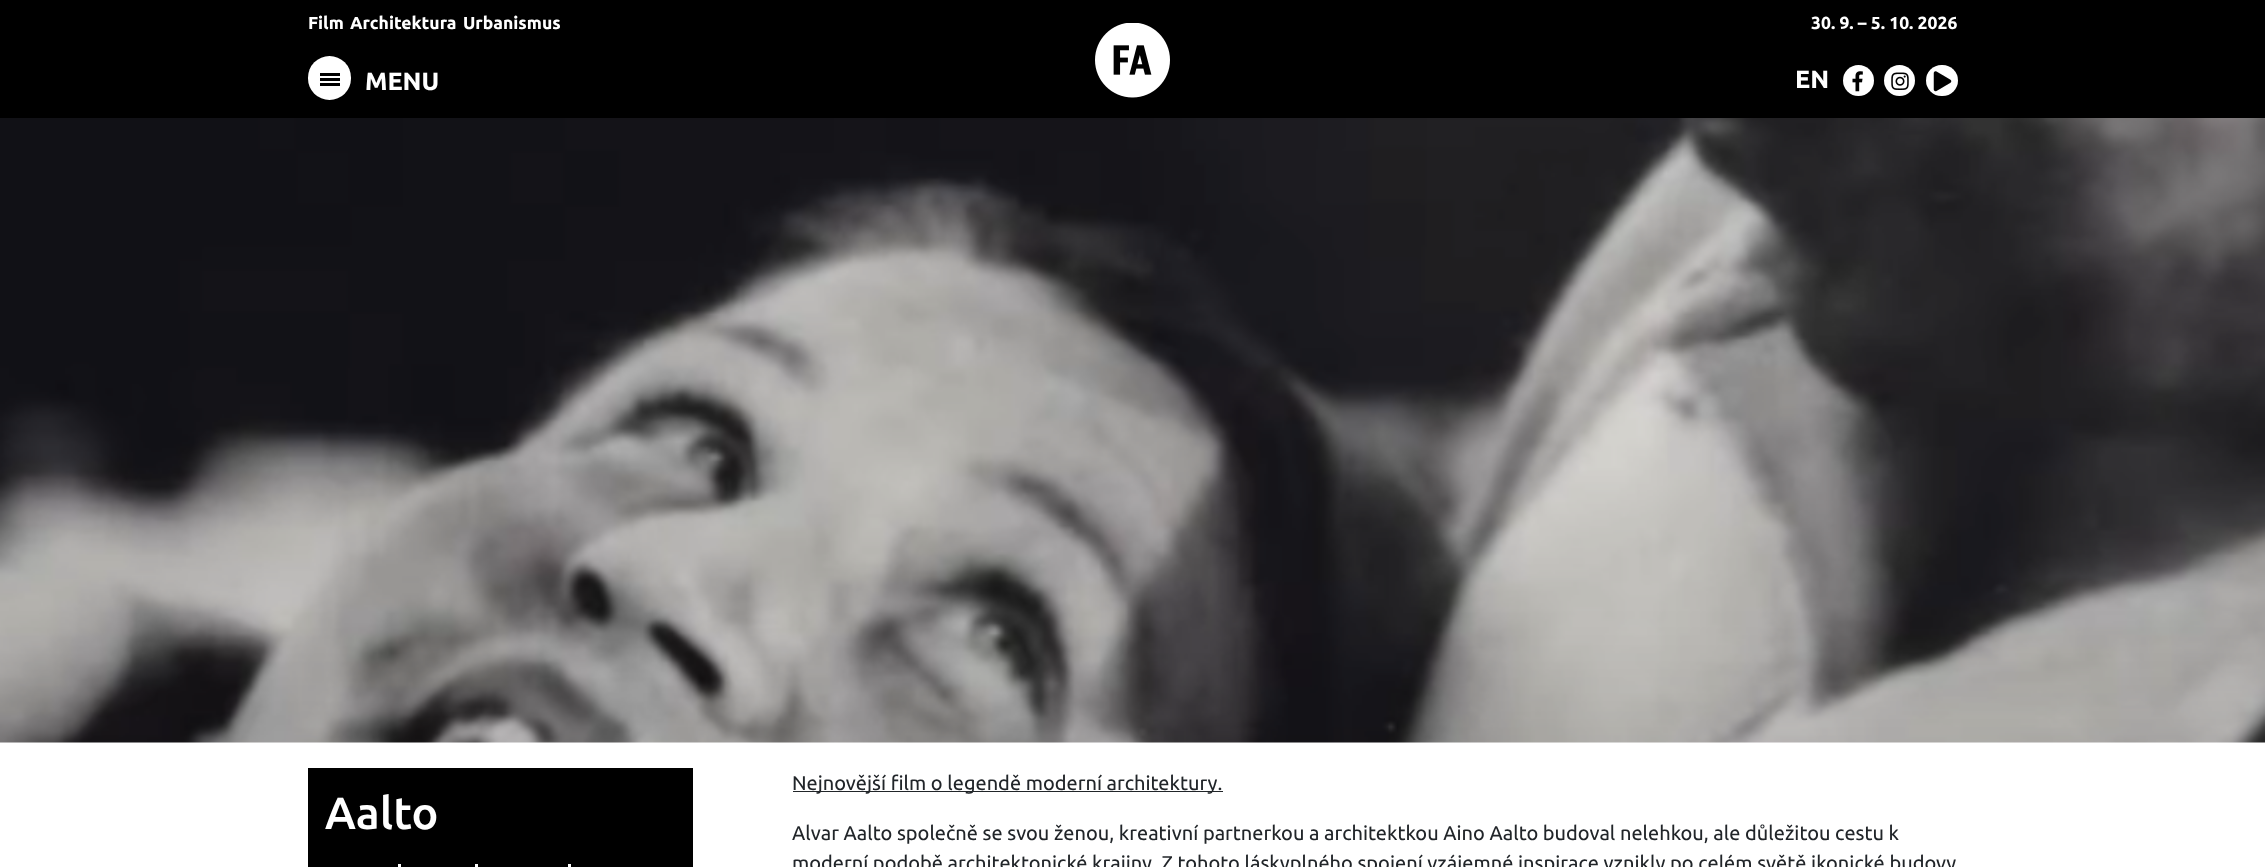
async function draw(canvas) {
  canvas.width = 2265
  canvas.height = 867
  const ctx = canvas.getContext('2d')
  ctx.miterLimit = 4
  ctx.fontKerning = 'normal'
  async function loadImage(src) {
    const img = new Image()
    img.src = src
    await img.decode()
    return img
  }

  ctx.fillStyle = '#fff'
  ctx.fillRect(0, 0, 2265, 867)
  ctx.fillStyle = '#000'
  ctx.fillRect(0, 0, 2265, 118)
  ctx.font = 'bold 17.5px Ubuntu'
  ctx.fillStyle = '#fff'
  ctx.fillText('Film', 308, 29)
  ctx.fillText('Architektura', 350, 29)
  ctx.fillText('Urbanismus', 463, 29)
  ctx.fillText('30. 9. – 5. 10. 2026', 1811, 29)
  ctx.beginPath()
  ctx.roundRect(308, 56, 43, 44, 21.5)
  ctx.fill()
  ctx.fillStyle = '#000'
  ctx.fillRect(320, 73, 20, 3)
  ctx.fillRect(320, 78, 20, 3)
  ctx.fillRect(320, 83, 20, 3)
  ctx.font = 'bold 25px Ubuntu'
  ctx.fillStyle = '#fff'
  ctx.fillText('MENU', 365, 90)
  ctx.drawImage(await loadImage('image0.png'), 1095, 23, 75, 75)
  ctx.fillText('EN', 1795, 88)
  ctx.beginPath()
  ctx.arc(1858.5, 80.5, 15.5, 0, 2 * Math.PI)
  ctx.fill()
  ctx.drawImage(await loadImage('image1.png'), 1852, 71, 11, 21)
  ctx.beginPath()
  ctx.arc(1899.5, 80.5, 15.5, 0, 2 * Math.PI)
  ctx.fill()
  ctx.drawImage(await loadImage('image2.png'), 1891, 72, 18, 18)
  ctx.beginPath()
  ctx.roundRect(1926, 65, 32, 31, 15.5)
  ctx.fill()
  ctx.drawImage(await loadImage('image3.png'), 1933, 71, 19, 21)
  ctx.drawImage(await loadImage('image4.png'), 0, 118, 2265, 625)
  ctx.fillStyle = '#000'
  ctx.fillRect(308, 768, 385, 99)
  ctx.font = '500 45px Ubuntu'
  ctx.fillStyle = '#fff'
  ctx.fillText('Aalto', 325, 829)
  ctx.fillRect(398, 864, 3, 3)
  ctx.fillRect(475, 864, 3, 3)
  ctx.fillRect(568, 864, 3, 3)
  ctx.fillStyle = '#212529'
  ctx.fillRect(793, 791, 430, 1)
  ctx.font = '20px Ubuntu'
  ctx.fillText('Nejnovější film o legendě moderní architektury.', 792, 790)
  ctx.fillText('Alvar Aalto společně se svou ženou, kreativní partnerkou a architektkou Aino Aalto budoval nelehkou, ale důležitou cestu k', 792, 840)
  ctx.fillText('moderní podobě architektonické krajiny. Z tohoto láskyplného spojení vzájemné inspirace vznikly po celém světě ikonické budovy', 792, 870)
}

draw(document.querySelector('canvas'))
